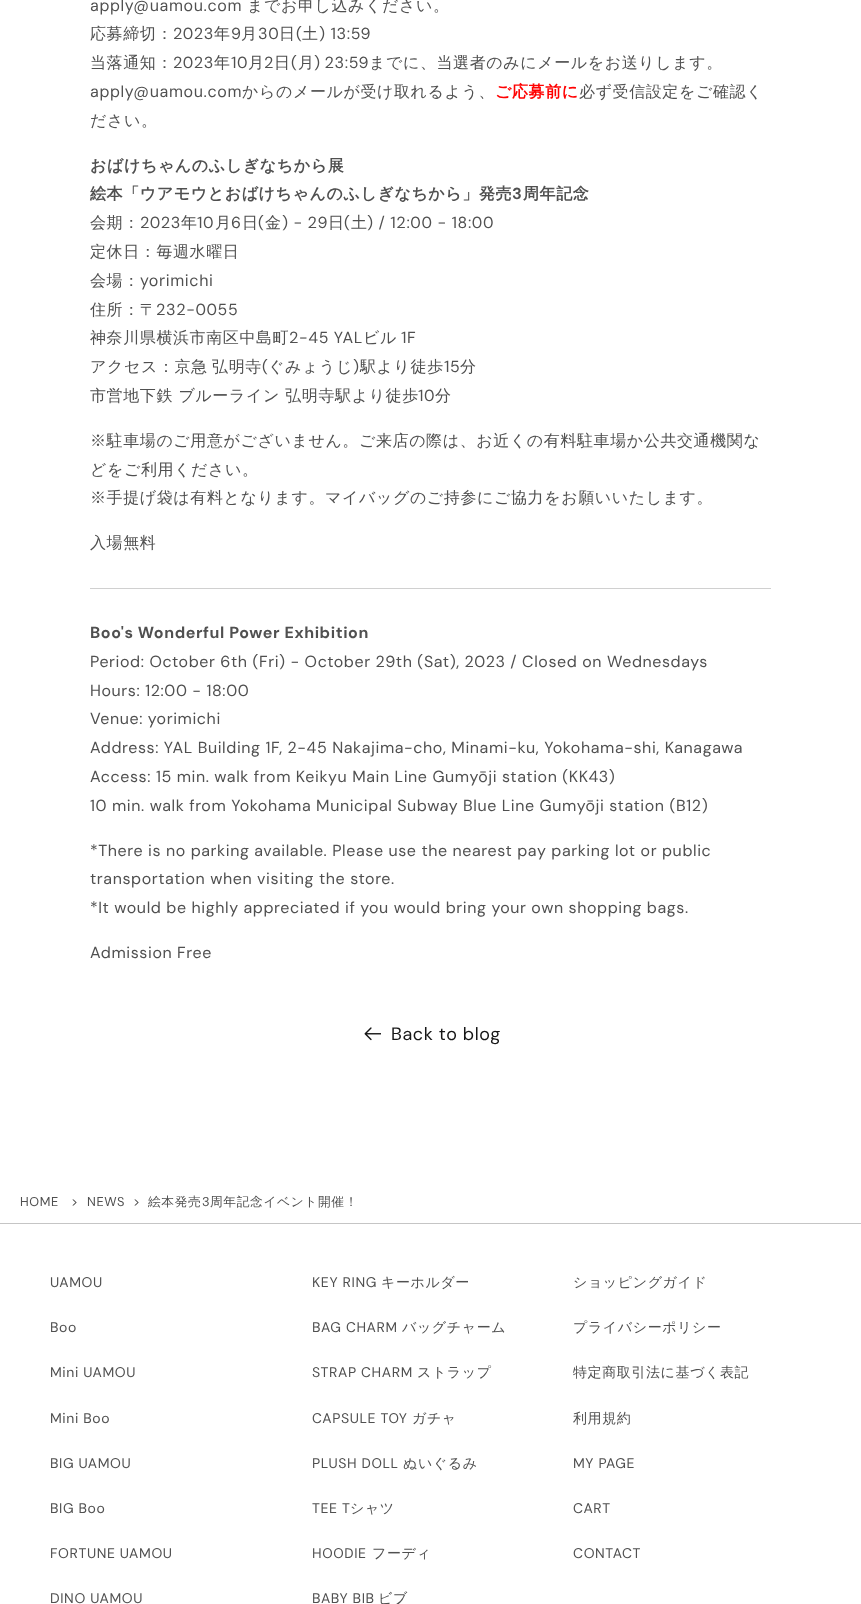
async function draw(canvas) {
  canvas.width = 861
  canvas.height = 1604
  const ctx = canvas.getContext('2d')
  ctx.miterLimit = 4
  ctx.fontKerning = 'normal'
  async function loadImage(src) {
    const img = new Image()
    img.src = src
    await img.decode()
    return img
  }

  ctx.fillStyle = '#fff'
  ctx.fillRect(0, 0, 861, 1604)
  ctx.letterSpacing = '0.6px'
  ctx.font = '16px "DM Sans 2"'
  ctx.fillStyle = '#505050'
  ctx.fillText('apply@uamou.com', 90, 11)
  ctx.font = '500 16px WenQuanYi Zen Hei'
  ctx.fillText('までお申し込みください。', 247, 11)
  ctx.fillText('応募締切：', 90, 39)
  ctx.font = '16px "DM Sans 2"'
  ctx.fillText('2023', 173, 39)
  ctx.font = '500 16px WenQuanYi Zen Hei'
  ctx.fillText('年', 214, 39)
  ctx.font = '16px "DM Sans 2"'
  ctx.fillText('9', 231, 39)
  ctx.font = '500 16px WenQuanYi Zen Hei'
  ctx.fillText('月', 241, 39)
  ctx.font = '16px "DM Sans 2"'
  ctx.fillText('30', 258, 39)
  ctx.font = '500 16px WenQuanYi Zen Hei'
  ctx.fillText('日', 279, 39)
  ctx.font = '16px "DM Sans 2"'
  ctx.fillText('(', 296, 39)
  ctx.font = '500 16px WenQuanYi Zen Hei'
  ctx.fillText('土', 302, 39)
  ctx.font = '16px "DM Sans 2"'
  ctx.fillText(') 13:59', 319, 39)
  ctx.font = '500 16px WenQuanYi Zen Hei'
  ctx.fillText('当落通知：', 90, 68)
  ctx.font = '16px "DM Sans 2"'
  ctx.fillText('2023', 173, 68)
  ctx.font = '500 16px WenQuanYi Zen Hei'
  ctx.fillText('年', 214, 68)
  ctx.font = '16px "DM Sans 2"'
  ctx.fillText('10', 231, 68)
  ctx.font = '500 16px WenQuanYi Zen Hei'
  ctx.fillText('月', 248, 68)
  ctx.font = '16px "DM Sans 2"'
  ctx.fillText('2', 264, 68)
  ctx.font = '500 16px WenQuanYi Zen Hei'
  ctx.fillText('日', 274, 68)
  ctx.font = '16px "DM Sans 2"'
  ctx.fillText('(', 291, 68)
  ctx.font = '500 16px WenQuanYi Zen Hei'
  ctx.fillText('月', 298, 68)
  ctx.wordSpacing = '-1px'
  ctx.font = '16px "DM Sans 2"'
  ctx.fillText(') 23:59', 314, 68)
  ctx.wordSpacing = '0px'
  ctx.font = '500 16px WenQuanYi Zen Hei'
  ctx.fillText('までに、当選者のみにメールをお送りします。', 369, 68)
  ctx.font = '16px "DM Sans 2"'
  ctx.fillText('apply@uamou.com', 90, 97)
  ctx.font = '500 16px WenQuanYi Zen Hei'
  ctx.fillText('からのメールが受け取れるよう、', 242, 97)
  ctx.font = 'bold 16px WenQuanYi Zen Hei'
  ctx.fillStyle = '#f00'
  ctx.fillText('ご応募前に', 495, 97)
  ctx.font = '500 16px WenQuanYi Zen Hei'
  ctx.fillStyle = '#505050'
  ctx.fillText('必ず受信設定をご確認く', 579, 97)
  ctx.fillText('ださい。', 90, 126)
  ctx.font = 'bold 16px WenQuanYi Zen Hei'
  ctx.fillText('おばけちゃんのふしぎなちから展', 90, 171)
  ctx.fillText('絵本「ウアモウとおばけちゃんのふしぎなちから」発売', 90, 199)
  ctx.font = 'bold 16px DM Sans'
  ctx.fillText('3', 512, 199)
  ctx.font = 'bold 16px WenQuanYi Zen Hei'
  ctx.fillText('周年記念', 523, 199)
  ctx.font = '500 16px WenQuanYi Zen Hei'
  ctx.fillText('会期：', 90, 228)
  ctx.font = '16px "DM Sans 2"'
  ctx.fillText('2023', 140, 228)
  ctx.font = '500 16px WenQuanYi Zen Hei'
  ctx.fillText('年', 181, 228)
  ctx.font = '16px "DM Sans 2"'
  ctx.fillText('10', 197, 228)
  ctx.font = '500 16px WenQuanYi Zen Hei'
  ctx.fillText('月', 215, 228)
  ctx.font = '16px "DM Sans 2"'
  ctx.fillText('6', 231, 228)
  ctx.font = '500 16px WenQuanYi Zen Hei'
  ctx.fillText('日', 242, 228)
  ctx.font = '16px "DM Sans 2"'
  ctx.fillText('(', 258, 228)
  ctx.font = '500 16px WenQuanYi Zen Hei'
  ctx.fillText('金', 265, 228)
  ctx.font = '16px "DM Sans 2"'
  ctx.fillText(') - 29', 282, 228)
  ctx.font = '500 16px WenQuanYi Zen Hei'
  ctx.fillText('日', 328, 228)
  ctx.font = '16px "DM Sans 2"'
  ctx.fillText('(', 344, 228)
  ctx.font = '500 16px WenQuanYi Zen Hei'
  ctx.fillText('土', 351, 228)
  ctx.font = '16px "DM Sans 2"'
  ctx.fillText(') / 12:00 - 18:00', 367, 228)
  ctx.font = '500 16px WenQuanYi Zen Hei'
  ctx.fillText('定休日：毎週水曜日', 90, 257)
  ctx.fillText('会場：', 90, 286)
  ctx.font = '16px "DM Sans 2"'
  ctx.fillText('yorimichi', 140, 286)
  ctx.font = '500 16px WenQuanYi Zen Hei'
  ctx.fillText('住所：〒', 90, 315)
  ctx.font = '16px "DM Sans 2"'
  ctx.fillText('232-0055', 156, 315)
  ctx.font = '500 16px WenQuanYi Zen Hei'
  ctx.fillText('神奈川県横浜市南区中島町', 90, 343)
  ctx.font = '16px "DM Sans 2"'
  ctx.fillText('2-45 YAL', 289, 343)
  ctx.font = '500 16px WenQuanYi Zen Hei'
  ctx.fillText('ビル', 363, 343)
  ctx.font = '16px "DM Sans 2"'
  ctx.fillText('1F', 401, 343)
  ctx.wordSpacing = '-1px'
  ctx.font = '500 16px WenQuanYi Zen Hei'
  ctx.fillText('アクセス：京急 弘明寺', 90, 372)
  ctx.wordSpacing = '0px'
  ctx.font = '16px "DM Sans 2"'
  ctx.fillText('(', 262, 372)
  ctx.font = '500 16px WenQuanYi Zen Hei'
  ctx.fillText('ぐみょうじ', 268, 372)
  ctx.font = '16px "DM Sans 2"'
  ctx.fillText(')', 353, 372)
  ctx.font = '500 16px WenQuanYi Zen Hei'
  ctx.fillText('駅より徒歩', 360, 372)
  ctx.font = '16px "DM Sans 2"'
  ctx.fillText('15', 444, 372)
  ctx.font = '500 16px WenQuanYi Zen Hei'
  ctx.fillText('分', 460, 372)
  ctx.fillText('市営地下鉄 ブルーライン 弘明寺駅より徒歩', 90, 401)
  ctx.font = '16px "DM Sans 2"'
  ctx.fillText('10', 418, 401)
  ctx.font = '500 16px WenQuanYi Zen Hei'
  ctx.fillText('分', 435, 401)
  ctx.fillText('※駐車場のご用意がございません。ご来店の際は、お近くの有料駐車場か公共交通機関な', 90, 446)
  ctx.fillText('どをご利用ください。', 90, 475)
  ctx.fillText('※手提げ袋は有料となります。マイバッグのご持参にご協力をお願いいたします。', 90, 503)
  ctx.fillText('入場無料', 90, 548)
  ctx.fillStyle = '#d0d0d0'
  ctx.fillRect(90, 588, 681, 1)
  ctx.font = 'bold 16px "DM Sans 2"'
  ctx.fillStyle = '#505050'
  ctx.fillText('Boo\'s Wonderful Power Exhibition', 90, 638)
  ctx.font = '16px "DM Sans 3"'
  ctx.fillText('Period: October 6th (Fri) - October 29th (Sat), 2023 / Closed on Wednesdays', 90, 667)
  ctx.fillText('Hours: 12:00 - 18:00', 90, 696)
  ctx.fillText('Venue: yorimichi', 90, 724)
  ctx.fillText('Address: YAL Building 1F, 2-45 Nakajima-cho, Minami-ku, Yokohama-shi, Kanagawa', 90, 753)
  ctx.fillText('Access: 15 min. walk from Keikyu Main Line Gumyōji station (KK43)', 90, 782)
  ctx.fillText('10 min. walk from Yokohama Municipal Subway Blue Line Gumyōji station (B12)', 90, 811)
  ctx.fillText('*There is no parking available. Please use the nearest pay parking lot or public', 90, 856)
  ctx.fillText('transportation when visiting the store.', 90, 884)
  ctx.fillText('*It would be highly appreciated if you would bring your own shopping bags.', 90, 913)
  ctx.fillText('Admission Free', 90, 958)
  ctx.drawImage(await loadImage('image0.png'), 364, 1027, 17, 14)
  ctx.font = '18px "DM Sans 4"'
  ctx.fillStyle = '#161616'
  ctx.fillText('Back to blog', 391, 1040)
  ctx.font = '12.75px DM Sans'
  ctx.fillStyle = '#505050'
  ctx.fillText('HOME', 20, 1206)
  ctx.fillText('>', 71, 1206)
  ctx.fillText('NEWS', 87, 1206)
  ctx.fillText('>', 133, 1206)
  ctx.font = '500 12.75px WenQuanYi Zen Hei'
  ctx.fillText('絵本発売', 148, 1206)
  ctx.font = '12.75px "DM Sans 2"'
  ctx.fillText('3', 202, 1206)
  ctx.font = '500 12.75px WenQuanYi Zen Hei'
  ctx.fillText('周年記念イベント開催！', 210, 1206)
  ctx.fillStyle = '#c5c5c5'
  ctx.fillRect(0, 1223, 861, 1)
  ctx.font = '14px "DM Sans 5"'
  ctx.fillStyle = '#505050'
  ctx.fillText('UAMOU', 50, 1287)
  ctx.fillText('Boo', 50, 1332)
  ctx.fillText('Mini UAMOU', 50, 1377)
  ctx.fillText('Mini Boo', 50, 1423)
  ctx.fillText('BIG UAMOU', 50, 1468)
  ctx.fillText('BIG Boo', 50, 1513)
  ctx.fillText('FORTUNE UAMOU', 50, 1558)
  ctx.fillText('DINO UAMOU', 50, 1603)
  ctx.font = '14px "DM Sans 2"'
  ctx.fillText('KEY RING', 312, 1287)
  ctx.font = '500 14px WenQuanYi Zen Hei'
  ctx.fillText('キーホルダー', 381, 1287)
  ctx.font = '14px "DM Sans 2"'
  ctx.fillText('BAG CHARM', 312, 1332)
  ctx.font = '500 14px WenQuanYi Zen Hei'
  ctx.fillText('バッグチャーム', 402, 1332)
  ctx.font = '14px "DM Sans 2"'
  ctx.fillText('STRAP CHARM', 312, 1377)
  ctx.font = '500 14px WenQuanYi Zen Hei'
  ctx.fillText('ストラップ', 417, 1377)
  ctx.font = '14px "DM Sans 2"'
  ctx.fillText('CAPSULE TOY', 312, 1423)
  ctx.font = '500 14px WenQuanYi Zen Hei'
  ctx.fillText('ガチャ', 412, 1423)
  ctx.font = '14px "DM Sans 2"'
  ctx.fillText('PLUSH DOLL', 312, 1468)
  ctx.font = '500 14px WenQuanYi Zen Hei'
  ctx.fillText('ぬいぐるみ', 403, 1468)
  ctx.font = '14px "DM Sans 2"'
  ctx.fillText('TEE T', 312, 1513)
  ctx.font = '500 14px WenQuanYi Zen Hei'
  ctx.fillText('シャツ', 350, 1513)
  ctx.font = '14px "DM Sans 2"'
  ctx.fillText('HOODIE', 312, 1558)
  ctx.font = '500 14px WenQuanYi Zen Hei'
  ctx.fillText('フーディ', 372, 1558)
  ctx.font = '14px "DM Sans 2"'
  ctx.fillText('BABY BIB', 312, 1603)
  ctx.font = '500 14px WenQuanYi Zen Hei'
  ctx.fillText('ビブ', 378, 1603)
  ctx.fillText('ショッピングガイド', 573, 1287)
  ctx.fillText('プライバシーポリシー', 573, 1332)
  ctx.fillText('特定商取引法に基づく表記', 573, 1377)
  ctx.fillText('利用規約', 573, 1423)
  ctx.font = '14px "DM Sans 5"'
  ctx.fillText('MY PAGE', 573, 1468)
  ctx.fillText('CART', 573, 1513)
  ctx.fillText('CONTACT', 573, 1558)
}

draw(document.querySelector('canvas'))
